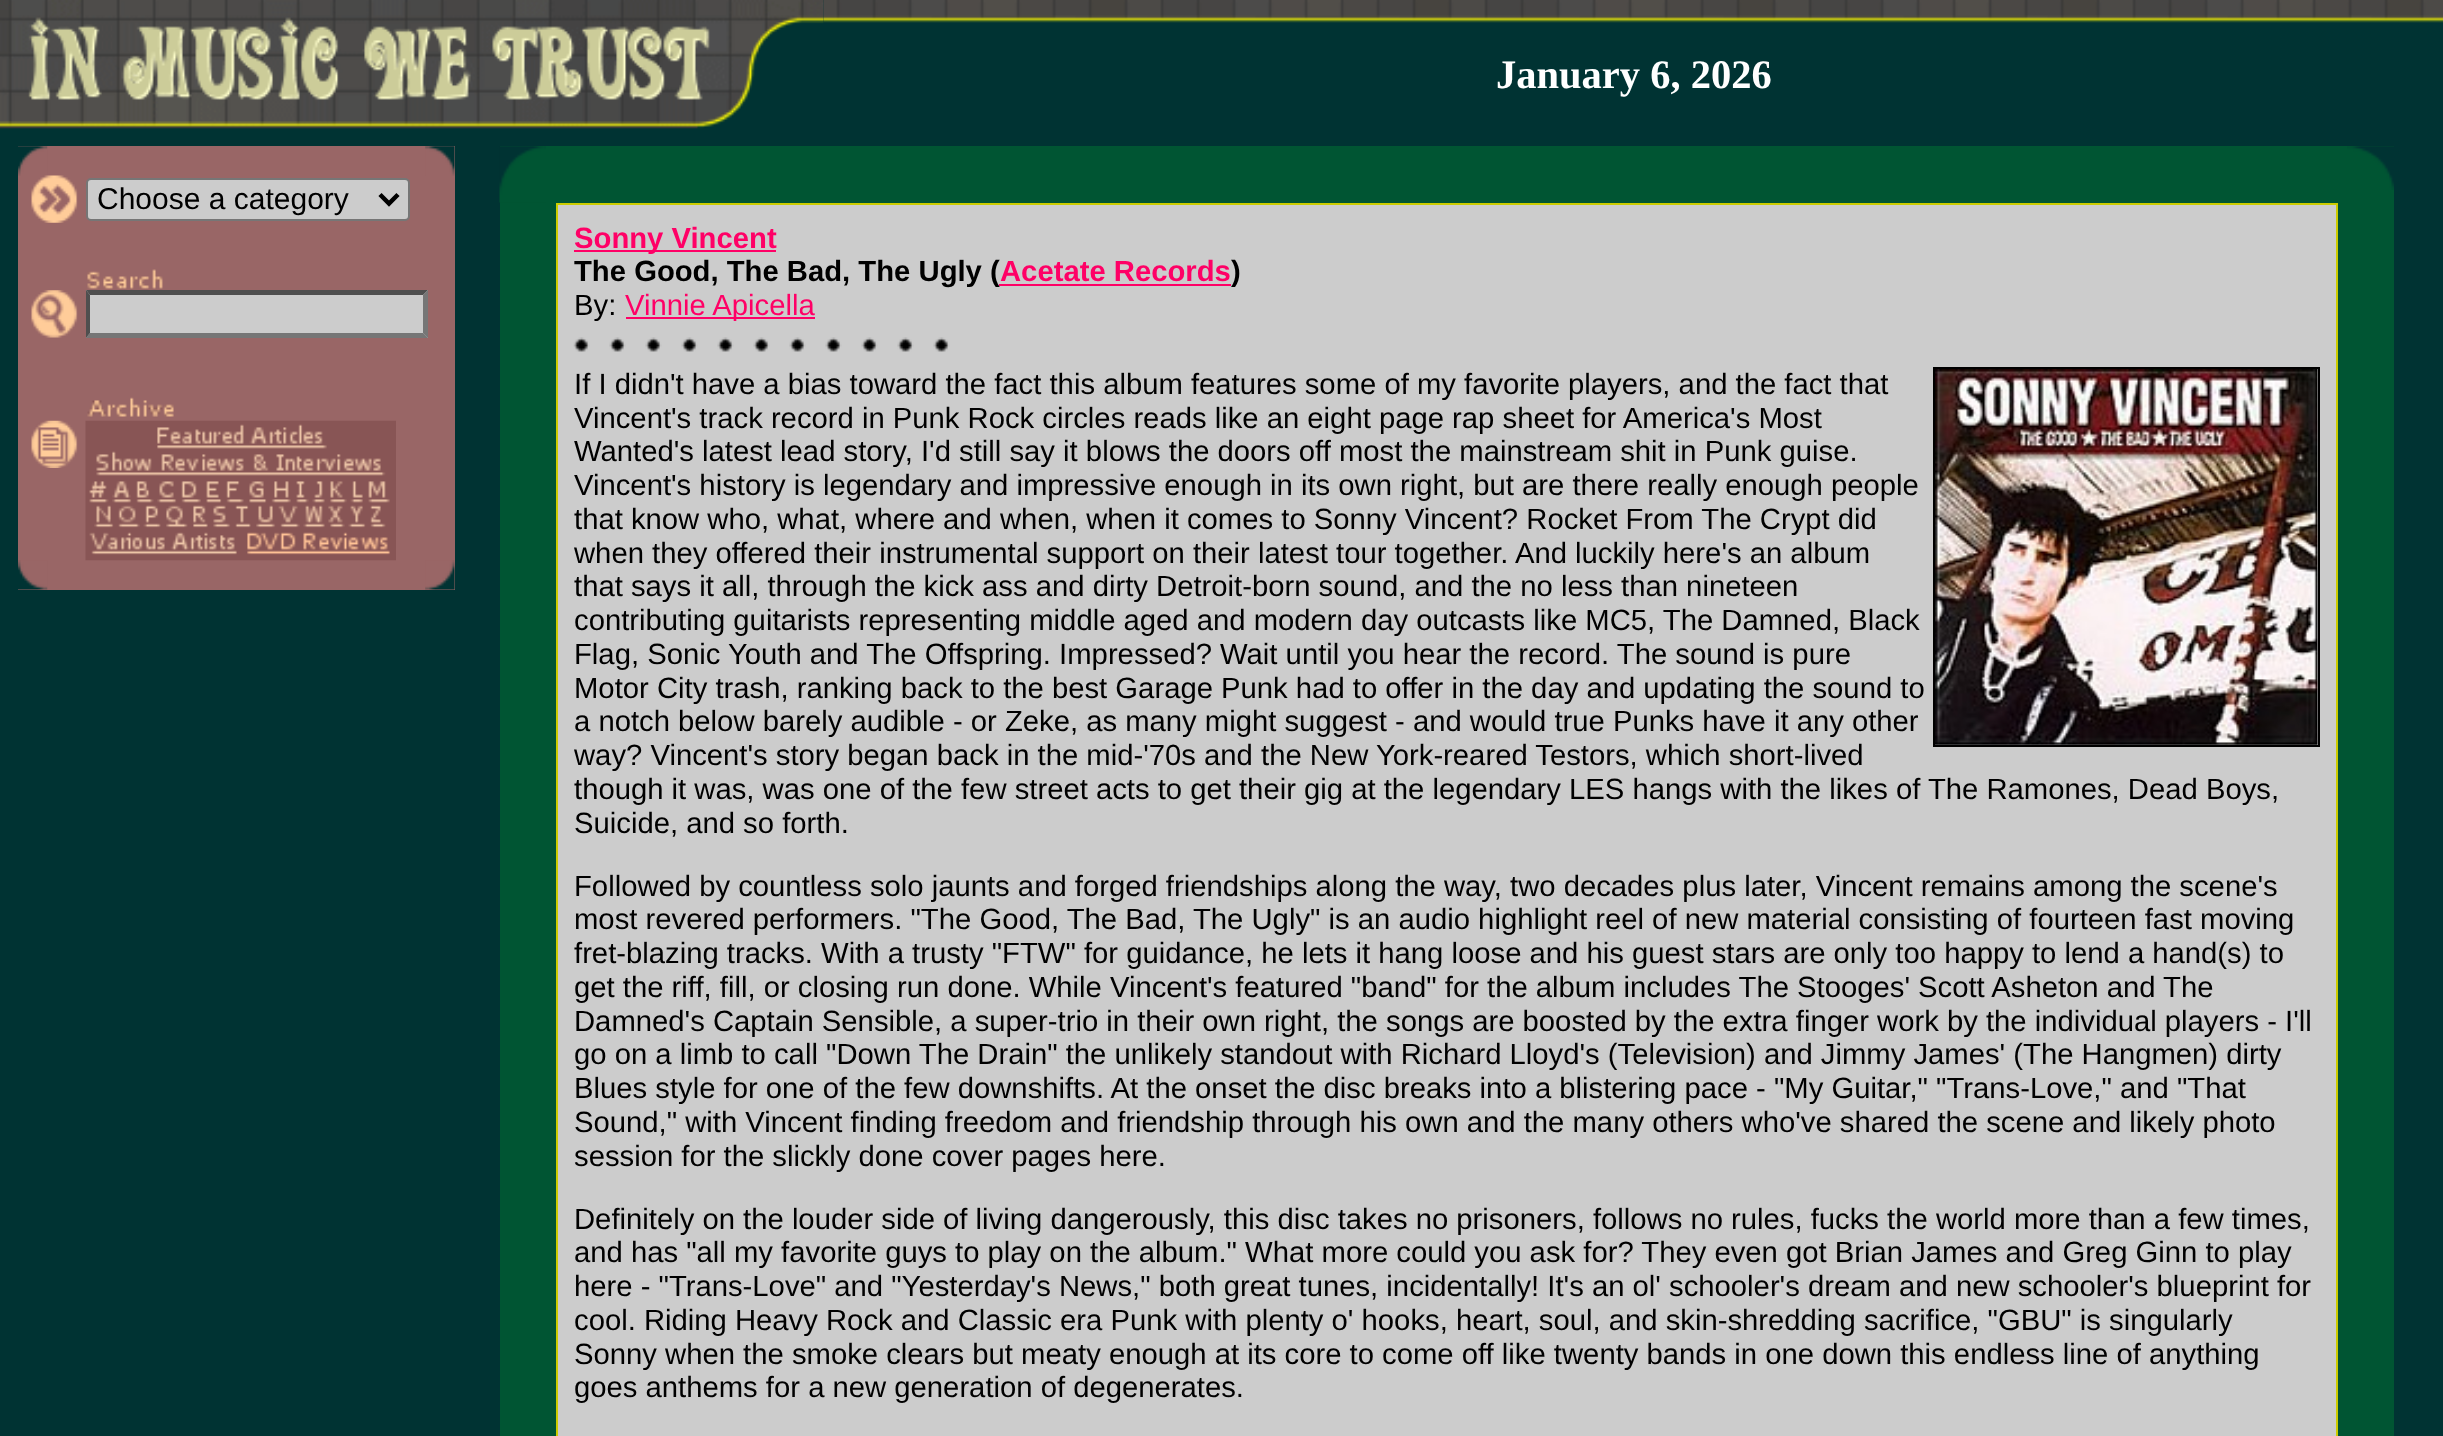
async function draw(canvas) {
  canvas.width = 2443
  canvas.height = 1436
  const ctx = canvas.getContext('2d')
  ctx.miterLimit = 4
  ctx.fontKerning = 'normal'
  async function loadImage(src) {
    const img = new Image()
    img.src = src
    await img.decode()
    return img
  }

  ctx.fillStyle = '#033'
  ctx.fillRect(0, 0, 2443, 1436)
  ctx.drawImage(await loadImage('image1.png'), 823, 0, 1620, 23)
  ctx.drawImage(await loadImage('image0.png'), 0, 0, 824, 129)
  ctx.font = 'bold 40.5px Liberation Serif'
  ctx.fillStyle = '#fff'
  ctx.fillText('January 6, 2026', 1496, 88)
  ctx.fillStyle = '#966'
  ctx.fillRect(18, 146, 437, 444)
  ctx.drawImage(await loadImage('image2.png'), 18, 146, 30, 30)
  ctx.drawImage(await loadImage('image3.png'), 425, 146, 30, 30)
  ctx.drawImage(await loadImage('image4.png'), 31, 175, 47, 48)
  ctx.fillStyle = '#ccc'
  ctx.beginPath()
  ctx.roundRect(87, 179, 322, 41, 4)
  ctx.fill()
  ctx.strokeStyle = '#767676'
  ctx.lineWidth = 2
  ctx.stroke()
  ctx.beginPath()
  ctx.moveTo(380, 194.5)
  ctx.lineTo(389, 203.5)
  ctx.lineTo(398, 194.5)
  ctx.strokeStyle = '#000'
  ctx.lineWidth = 4.5
  ctx.stroke()
  ctx.font = '30px Liberation Sans'
  ctx.fillStyle = '#000'
  ctx.fillText('Choose a category', 97, 209)
  ctx.drawImage(await loadImage('image5.png'), 87, 269, 76, 20)
  ctx.drawImage(await loadImage('image6.png'), 31, 290, 47, 48)
  ctx.fillStyle = '#ccc'
  ctx.fillRect(86, 290, 342, 48)
  ctx.fillStyle = '#4f4f4f'
  ctx.beginPath()
  ctx.moveTo(86, 290)
  ctx.lineTo(428, 290)
  ctx.lineTo(423, 295)
  ctx.lineTo(90, 295)
  ctx.closePath()
  ctx.fill()
  ctx.fillStyle = '#767676'
  ctx.beginPath()
  ctx.moveTo(428, 290)
  ctx.lineTo(428, 338)
  ctx.lineTo(423, 333)
  ctx.lineTo(423, 295)
  ctx.closePath()
  ctx.fill()
  ctx.beginPath()
  ctx.moveTo(428, 338)
  ctx.lineTo(86, 338)
  ctx.lineTo(90, 333)
  ctx.lineTo(423, 333)
  ctx.closePath()
  ctx.fill()
  ctx.fillStyle = '#4f4f4f'
  ctx.beginPath()
  ctx.moveTo(86, 338)
  ctx.lineTo(86, 290)
  ctx.lineTo(90, 295)
  ctx.lineTo(90, 333)
  ctx.closePath()
  ctx.fill()
  ctx.drawImage(await loadImage('image7.png'), 87, 397, 87, 20)
  ctx.drawImage(await loadImage('image8.png'), 31, 420, 47, 48)
  ctx.drawImage(await loadImage('image9.png'), 85, 420, 311, 141)
  ctx.drawImage(await loadImage('image10.png'), 18, 560, 30, 30)
  ctx.drawImage(await loadImage('image11.png'), 425, 560, 30, 30)
  ctx.fillStyle = '#053'
  ctx.fillRect(500, 146, 1894, 1290)
  ctx.drawImage(await loadImage('image12.png'), 499, 146, 47, 57)
  ctx.drawImage(await loadImage('image13.png'), 2347, 146, 47, 44)
  ctx.fillStyle = '#cc0'
  ctx.fillRect(556, 203, 1782, 1233)
  ctx.fillStyle = '#ccc'
  ctx.fillRect(558, 205, 1778, 1231)
  ctx.fillStyle = '#f06'
  ctx.fillRect(574, 250, 202, 2)
  ctx.font = 'bold 29.25px Liberation Sans'
  ctx.fillText('Sonny Vincent', 574, 248)
  ctx.fillStyle = '#000'
  ctx.fillText('The Good, The Bad, The Ugly (', 574, 281)
  ctx.fillStyle = '#f06'
  ctx.fillRect(999, 284, 232, 2)
  ctx.fillText('Acetate Records', 1000, 281)
  ctx.fillStyle = '#000'
  ctx.fillText(')', 1231, 281)
  ctx.font = '29.25px Liberation Sans'
  ctx.fillText('By:', 574, 315)
  ctx.fillStyle = '#f06'
  ctx.fillRect(626, 317, 189, 2)
  ctx.fillText('Vinnie Apicella', 625, 315)
  ctx.drawImage(await loadImage('image14.png'), 573, 337, 377, 15)
  ctx.fillStyle = '#000'
  ctx.fillText('If I didn\'t have a bias toward the fact this album features some of my favorite players, and the fact that', 574, 394)
  ctx.lineWidth = 2
  ctx.strokeRect(1934, 368, 385, 378)
  ctx.drawImage(await loadImage('image15.png'), 1935, 369, 383, 376)
  ctx.fillText('Vincent\'s track record in Punk Rock circles reads like an eight page rap sheet for America\'s Most', 574, 428)
  ctx.fillText('Wanted\'s latest lead story, I\'d still say it blows the doors off most the mainstream shit in Punk guise.', 574, 461)
  ctx.fillText('Vincent\'s history is legendary and impressive enough in its own right, but are there really enough people', 574, 495)
  ctx.fillText('that know who, what, where and when, when it comes to Sonny Vincent? Rocket From The Crypt did', 574, 529)
  ctx.fillText('when they offered their instrumental support on their latest tour together. And luckily here\'s an album', 574, 563)
  ctx.fillText('that says it all, through the kick ass and dirty Detroit-born sound, and the no less than nineteen', 574, 596)
  ctx.fillText('contributing guitarists representing middle aged and modern day outcasts like MC5, The Damned, Black', 574, 630)
  ctx.fillText('Flag, Sonic Youth and The Offspring. Impressed? Wait until you hear the record. The sound is pure', 574, 664)
  ctx.fillText('Motor City trash, ranking back to the best Garage Punk had to offer in the day and updating the sound to', 574, 698)
  ctx.fillText('a notch below barely audible - or Zeke, as many might suggest - and would true Punks have it any other', 574, 731)
  ctx.fillText('way? Vincent\'s story began back in the mid-\'70s and the New York-reared Testors, which short-lived', 574, 765)
  ctx.fillText('though it was, was one of the few street acts to get their gig at the legendary LES hangs with the likes of The Ramones, Dead Boys,', 574, 799)
  ctx.fillText('Suicide, and so forth.', 574, 833)
  ctx.fillText('Followed by countless solo jaunts and forged friendships along the way, two decades plus later, Vincent remains among the scene\'s', 574, 896)
  ctx.fillText('most revered performers. "The Good, The Bad, The Ugly" is an audio highlight reel of new material consisting of fourteen fast moving', 574, 929)
  ctx.fillText('fret-blazing tracks. With a trusty "FTW" for guidance, he lets it hang loose and his guest stars are only too happy to lend a hand(s) to', 574, 963)
  ctx.fillText('get the riff, fill, or closing run done. While Vincent\'s featured "band" for the album includes The Stooges\' Scott Asheton and The', 574, 997)
  ctx.fillText('Damned\'s Captain Sensible, a super-trio in their own right, the songs are boosted by the extra finger work by the individual players - I\'ll', 574, 1031)
  ctx.fillText('go on a limb to call "Down The Drain" the unlikely standout with Richard Lloyd\'s (Television) and Jimmy James\' (The Hangmen) dirty', 574, 1064)
  ctx.fillText('Blues style for one of the few downshifts. At the onset the disc breaks into a blistering pace - "My Guitar," "Trans-Love," and "That', 574, 1098)
  ctx.fillText('Sound," with Vincent finding freedom and friendship through his own and the many others who\'ve shared the scene and likely photo', 574, 1132)
  ctx.fillText('session for the slickly done cover pages here.', 574, 1166)
  ctx.fillText('Definitely on the louder side of living dangerously, this disc takes no prisoners, follows no rules, fucks the world more than a few times,', 574, 1229)
  ctx.fillText('and has "all my favorite guys to play on the album." What more could you ask for? They even got Brian James and Greg Ginn to play', 574, 1262)
  ctx.fillText('here - "Trans-Love" and "Yesterday\'s News," both great tunes, incidentally! It\'s an ol\' schooler\'s dream and new schooler\'s blueprint for', 574, 1296)
  ctx.fillText('cool. Riding Heavy Rock and Classic era Punk with plenty o\' hooks, heart, soul, and skin-shredding sacrifice, "GBU" is singularly', 574, 1330)
  ctx.fillText('Sonny when the smoke clears but meaty enough at its core to come off like twenty bands in one down this endless line of anything', 574, 1364)
  ctx.fillText('goes anthems for a new generation of degenerates.', 574, 1397)
}

draw(document.querySelector('canvas'))
